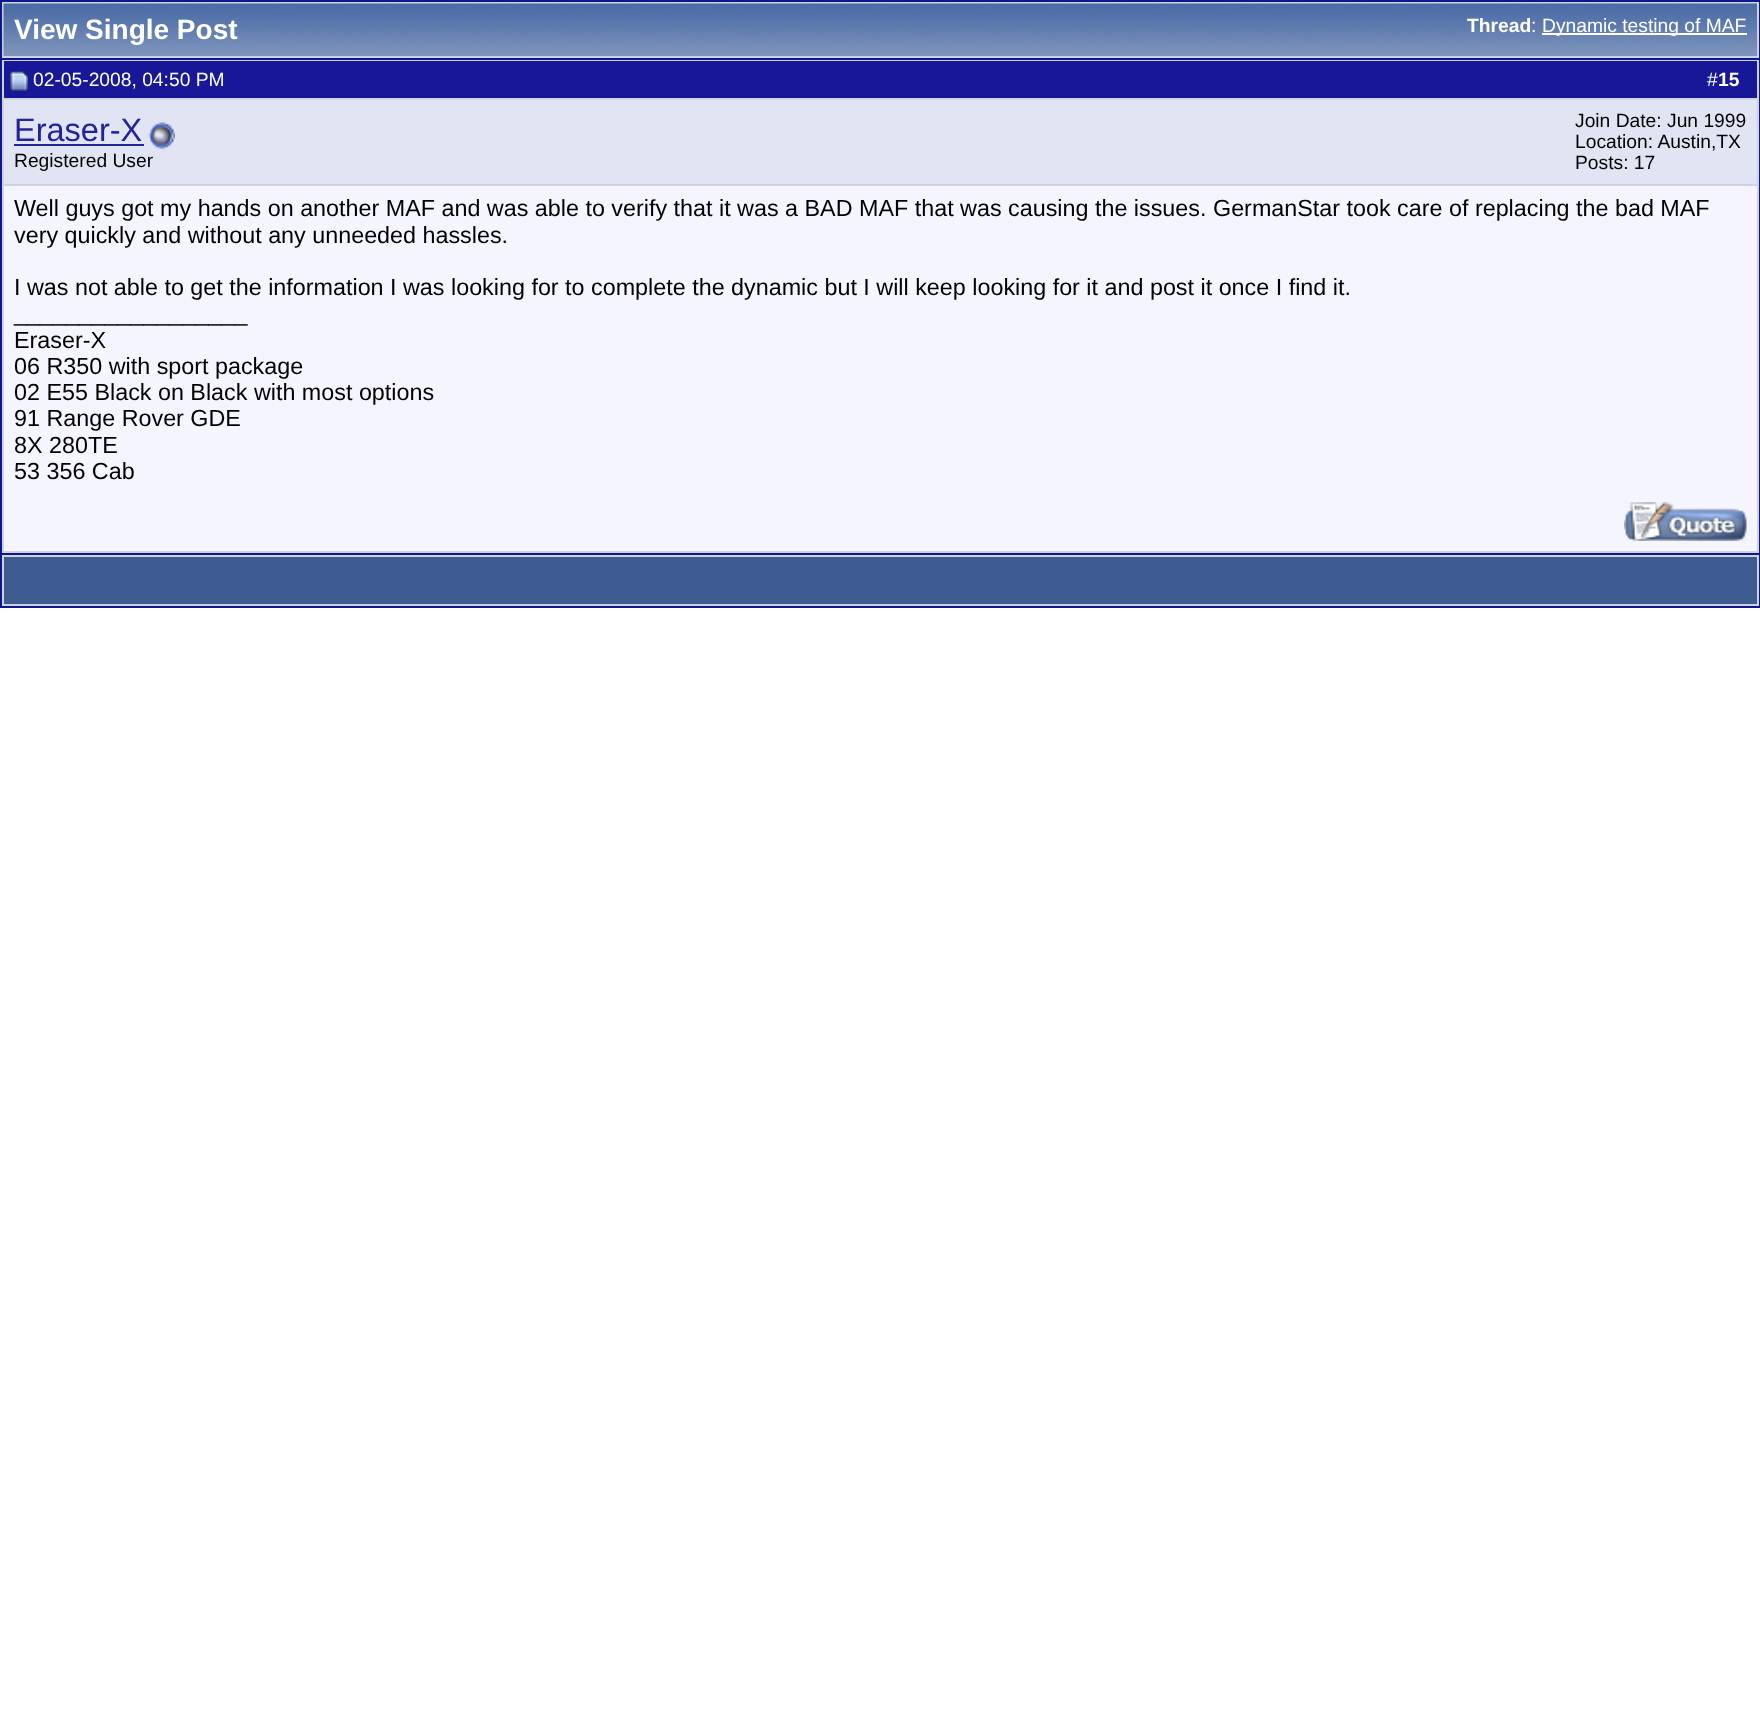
async function draw(canvas) {
  canvas.width = 1760
  canvas.height = 1730
  const ctx = canvas.getContext('2d')
  ctx.miterLimit = 4
  ctx.fontKerning = 'normal'
  async function loadImage(src) {
    const img = new Image()
    img.src = src
    await img.decode()
    return img
  }

  ctx.fillStyle = '#fff'
  ctx.fillRect(0, 0, 1760, 1730)
  ctx.fillStyle = '#d1d1e1'
  ctx.fillRect(2, 2, 1757, 56)
  ctx.fillStyle = '#0b198c'
  ctx.fillRect(0, 0, 1760, 2)
  ctx.fillRect(1759, 0, 1, 58)
  ctx.fillRect(0, 0, 2, 58)
  ctx.drawImage(await loadImage('image0.png'), 3, 3, 1754, 53)
  ctx.font = 'bold 28px Liberation Sans'
  ctx.fillStyle = '#fff'
  ctx.fillText('View Single Post', 14, 39)
  ctx.font = 'bold 19.25px Liberation Sans'
  ctx.fillText('Thread', 1467, 32)
  ctx.font = '19.25px Liberation Sans'
  ctx.fillText(':', 1531, 32)
  ctx.fillRect(1542, 33, 205, 2)
  ctx.fillText('Dynamic testing of MAF', 1542, 32)
  ctx.fillStyle = '#d1d1e1'
  ctx.beginPath()
  ctx.rect(1, 59, 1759, 495)
  ctx.fill()
  ctx.strokeStyle = '#0b198c'
  ctx.lineWidth = 2
  ctx.stroke()
  ctx.fillStyle = '#171797'
  ctx.fillRect(4, 61, 1753, 37)
  ctx.drawImage(await loadImage('image1.png'), 10, 71, 18, 20)
  ctx.fillStyle = '#fff'
  ctx.fillText('02-05-2008, 04:50 PM', 33, 86)
  ctx.fillText('#', 1707, 86)
  ctx.font = 'bold 19.25px Liberation Sans'
  ctx.fillText('15', 1718, 86)
  ctx.fillStyle = '#e1e4f2'
  ctx.fillRect(4, 100, 1753, 84)
  ctx.font = '32.5px Liberation Sans'
  ctx.fillStyle = '#22229c'
  ctx.fillText('Eraser-X', 14, 141)
  ctx.fillRect(14, 144, 130, 2)
  ctx.drawImage(await loadImage('image2.png'), 148, 122, 27, 27)
  ctx.font = '19.25px Liberation Sans'
  ctx.fillStyle = '#000'
  ctx.fillText('Registered User', 14, 167)
  ctx.fillText('Join Date: Jun 1999', 1575, 127)
  ctx.fillText('Location: Austin,TX', 1575, 148)
  ctx.fillText('Posts: 17', 1575, 169)
  ctx.fillStyle = '#f5f5ff'
  ctx.fillRect(4, 186, 1753, 365)
  ctx.font = '23.33px Liberation Sans'
  ctx.fillStyle = '#000'
  ctx.fillText('Well guys got my hands on another MAF and was able to verify that it was a BAD MAF that was causing the issues.', 14, 216)
  ctx.fillText('GermanStar took care of replacing the bad MAF', 1213, 216)
  ctx.fillText('very quickly and without any unneeded hassles.', 14, 243)
  ctx.fillText('I was not able to get the information I was looking for to complete the dynamic but I will keep looking for it and post it once I find it.', 14, 295)
  ctx.fillText('__________________', 14, 321)
  ctx.fillText('Eraser-X', 14, 348)
  ctx.fillText('06 R350 with sport package', 14, 374)
  ctx.fillText('02 E55 Black on Black with most options', 14, 400)
  ctx.fillText('91 Range Rover GDE', 14, 426)
  ctx.fillText('8X 280TE', 14, 453)
  ctx.fillText('53 356 Cab', 14, 479)
  ctx.drawImage(await loadImage('image3.png'), 1624, 502, 123, 39)
  ctx.fillStyle = '#d1d1e1'
  ctx.fillRect(2, 555, 1757, 51)
  ctx.fillStyle = '#0b198c'
  ctx.fillRect(1759, 555, 1, 52)
  ctx.fillRect(0, 606, 1760, 2)
  ctx.fillRect(0, 555, 2, 52)
  ctx.fillStyle = '#3e5c92'
  ctx.fillRect(4, 557, 1753, 47)
}

draw(document.querySelector('canvas'))
